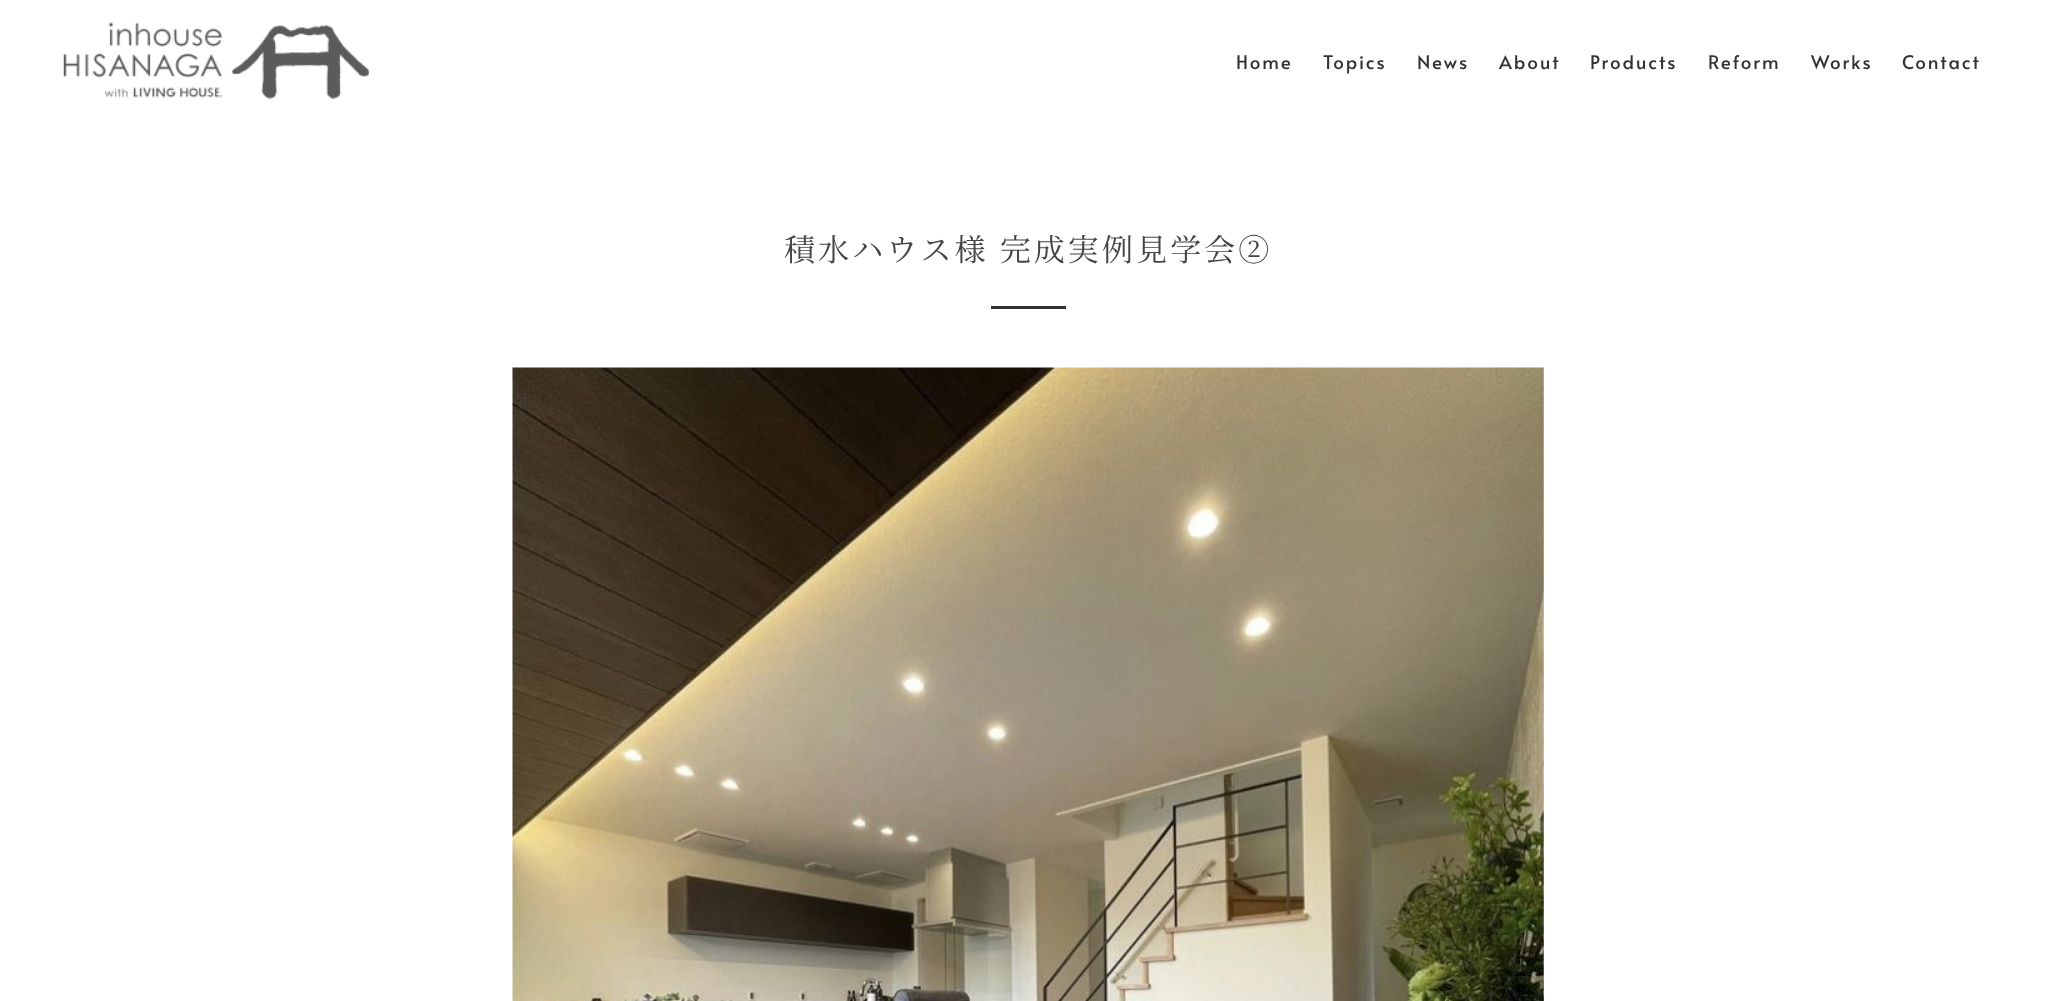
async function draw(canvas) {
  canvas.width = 2056
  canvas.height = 1001
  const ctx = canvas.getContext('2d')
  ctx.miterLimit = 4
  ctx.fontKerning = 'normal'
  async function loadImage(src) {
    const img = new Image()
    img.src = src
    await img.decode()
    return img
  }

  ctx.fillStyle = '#fff'
  ctx.fillRect(0, 0, 2056, 1001)
  ctx.drawImage(await loadImage('image0.png'), 63, 22, 307, 77)
  ctx.letterSpacing = '2px'
  ctx.font = '18.75px Alata'
  ctx.fillStyle = '#333'
  ctx.fillText('Home', 1236, 69)
  ctx.fillText('Topics', 1323, 69)
  ctx.fillText('News', 1417, 69)
  ctx.fillText('About', 1499, 69)
  ctx.fillText('Products', 1590, 69)
  ctx.fillText('Reform', 1708, 69)
  ctx.fillText('Works', 1811, 69)
  ctx.fillText('Contact', 1902, 69)
  ctx.letterSpacing = '3.1px'
  ctx.font = '200 31px Noto Serif JP'
  ctx.fillStyle = '#444'
  ctx.fillText('積水ハウス様 完成実例見学会②', 784, 261)
  ctx.fillStyle = '#333'
  ctx.fillRect(991, 306, 75, 3)
  ctx.drawImage(await loadImage('image1.png'), 512, 367, 1032, 634)
}

draw(document.querySelector('canvas'))
